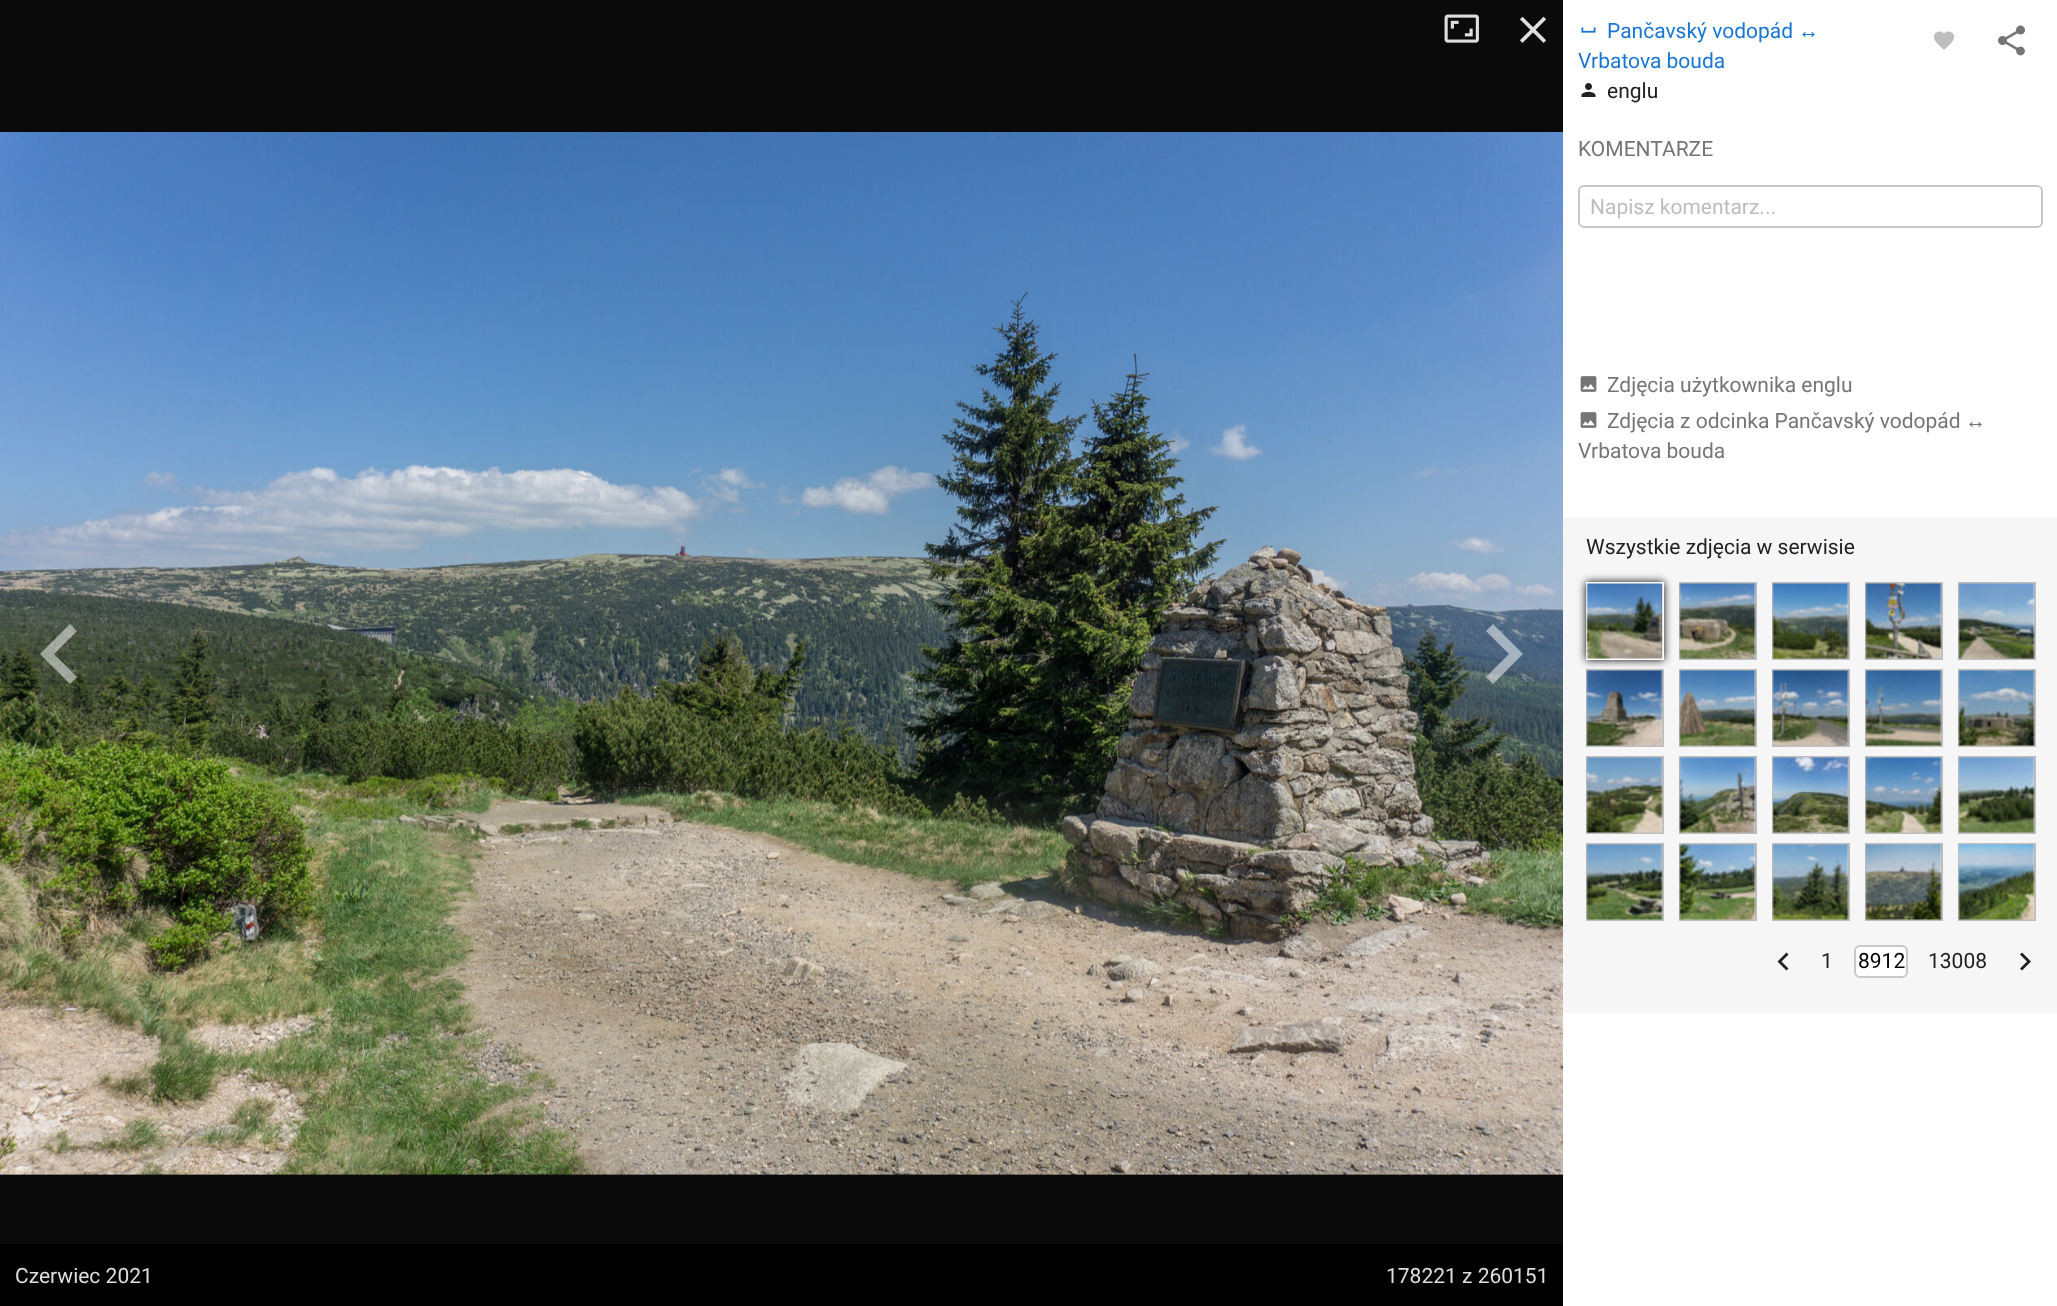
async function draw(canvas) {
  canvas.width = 2057
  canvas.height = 1306
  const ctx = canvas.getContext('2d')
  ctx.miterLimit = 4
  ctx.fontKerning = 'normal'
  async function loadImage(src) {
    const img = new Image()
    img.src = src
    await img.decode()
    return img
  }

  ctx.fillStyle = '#0a0a0a'
  ctx.fillRect(0, 0, 2057, 1306)
  ctx.fillStyle = '#fff'
  ctx.fillRect(1563, 0, 494, 1306)
  ctx.drawImage(await loadImage('image0.png'), 1581, 27, 15, 6)
  ctx.font = '21px Roboto'
  ctx.fillStyle = '#1976d2'
  ctx.fillText('Pančavský vodopád', 1607, 38)
  ctx.font = '21px Liberation Sans'
  ctx.fillText('↔', 1798, 38)
  ctx.font = '21px Roboto'
  ctx.fillText('Vrbatova bouda', 1578, 68)
  ctx.drawImage(await loadImage('image1.png'), 1581, 83, 15, 14)
  ctx.fillStyle = '#212121'
  ctx.fillText('englu', 1607, 98)
  ctx.drawImage(await loadImage('image2.png'), 1934, 31, 20, 19)
  ctx.drawImage(await loadImage('image3.png'), 1998, 25, 27, 31)
  ctx.fillStyle = '#757575'
  ctx.fillText('KOMENTARZE', 1578, 156)
  ctx.beginPath()
  ctx.roundRect(1579, 186, 463, 41, 5)
  ctx.strokeStyle = '#c8c8c8'
  ctx.lineWidth = 2
  ctx.stroke()
  ctx.fillStyle = '#bdbdbd'
  ctx.fillText('Napisz komentarz...', 1590, 214)
  ctx.drawImage(await loadImage('image4.png'), 1580, 376, 17, 16)
  ctx.fillStyle = '#757575'
  ctx.fillText('Zdjęcia użytkownika englu', 1607, 392)
  ctx.drawImage(await loadImage('image4.png'), 1580, 412, 17, 16)
  ctx.fillText('Zdjęcia z odcinka Pančavský vodopád', 1607, 428)
  ctx.font = '21px Liberation Sans'
  ctx.fillText('↔', 1965, 428)
  ctx.font = '21px Roboto'
  ctx.fillText('Vrbatova bouda', 1578, 458)
  ctx.fillStyle = '#f6f6f6'
  ctx.fillRect(1563, 518, 494, 495)
  ctx.fillStyle = '#212121'
  ctx.fillText('Wszystkie zdjęcia w serwisie', 1586, 554)
  ctx.fillStyle = '#000'
  ctx.filter = 'blur(4px)'
  ctx.beginPath()
  ctx.rect(1586, 582, 78, 78)
  ctx.fill()
  ctx.filter = 'none'
  ctx.strokeStyle = '#fff'
  ctx.strokeRect(1587, 583, 76, 76)
  ctx.drawImage(await loadImage('image5.png'), 1586, 583, 77, 76)
  ctx.strokeStyle = '#bdbdbd'
  ctx.strokeRect(1680, 583, 76, 76)
  ctx.drawImage(await loadImage('image6.png'), 1679, 583, 77, 76)
  ctx.strokeRect(1773, 583, 76, 76)
  ctx.drawImage(await loadImage('image7.png'), 1772, 583, 77, 76)
  ctx.strokeRect(1866, 583, 76, 76)
  ctx.drawImage(await loadImage('image8.png'), 1865, 583, 77, 76)
  ctx.strokeRect(1959, 583, 76, 76)
  ctx.drawImage(await loadImage('image9.png'), 1958, 583, 77, 76)
  ctx.strokeRect(1587, 670, 76, 76)
  ctx.drawImage(await loadImage('image10.png'), 1586, 670, 77, 76)
  ctx.strokeRect(1680, 670, 76, 76)
  ctx.drawImage(await loadImage('image11.png'), 1679, 670, 77, 76)
  ctx.strokeRect(1773, 670, 76, 76)
  ctx.drawImage(await loadImage('image12.png'), 1772, 670, 77, 76)
  ctx.strokeRect(1866, 670, 76, 76)
  ctx.drawImage(await loadImage('image13.png'), 1865, 670, 77, 76)
  ctx.strokeRect(1959, 670, 76, 76)
  ctx.drawImage(await loadImage('image14.png'), 1958, 670, 77, 76)
  ctx.strokeRect(1587, 757, 76, 76)
  ctx.drawImage(await loadImage('image15.png'), 1586, 757, 77, 76)
  ctx.strokeRect(1680, 757, 76, 76)
  ctx.drawImage(await loadImage('image16.png'), 1679, 757, 77, 76)
  ctx.strokeRect(1773, 757, 76, 76)
  ctx.drawImage(await loadImage('image17.png'), 1772, 757, 77, 76)
  ctx.strokeRect(1866, 757, 76, 76)
  ctx.drawImage(await loadImage('image18.png'), 1865, 757, 77, 76)
  ctx.strokeRect(1959, 757, 76, 76)
  ctx.drawImage(await loadImage('image19.png'), 1958, 757, 77, 76)
  ctx.strokeRect(1587, 844, 76, 76)
  ctx.drawImage(await loadImage('image20.png'), 1586, 844, 77, 76)
  ctx.strokeRect(1680, 844, 76, 76)
  ctx.drawImage(await loadImage('image21.png'), 1679, 844, 77, 76)
  ctx.strokeRect(1773, 844, 76, 76)
  ctx.drawImage(await loadImage('image22.png'), 1772, 844, 77, 76)
  ctx.strokeRect(1866, 844, 76, 76)
  ctx.drawImage(await loadImage('image23.png'), 1865, 844, 77, 76)
  ctx.strokeRect(1959, 844, 76, 76)
  ctx.drawImage(await loadImage('image24.png'), 1958, 844, 77, 76)
  ctx.fillStyle = '#212121'
  ctx.beginPath()
  ctx.moveTo(1788.5, 968.5)
  ctx.lineTo(1786.5, 970.5)
  ctx.lineTo(1777.5, 961.5)
  ctx.lineTo(1786.5, 952.5)
  ctx.lineTo(1788.5, 954.5)
  ctx.lineTo(1781.5, 961.5)
  ctx.closePath()
  ctx.fill()
  ctx.fillText('1', 1821, 968)
  ctx.fillStyle = '#fff'
  ctx.beginPath()
  ctx.roundRect(1855, 946, 52, 31, 5)
  ctx.fill()
  ctx.strokeStyle = '#c8c8c8'
  ctx.stroke()
  ctx.fillStyle = '#000'
  ctx.fillText('8912', 1858, 968)
  ctx.fillStyle = '#212121'
  ctx.fillText('13008', 1928, 968)
  ctx.beginPath()
  ctx.moveTo(2020, 968.5)
  ctx.lineTo(2027, 961.5)
  ctx.lineTo(2020, 954.5)
  ctx.lineTo(2022, 952.5)
  ctx.lineTo(2031, 961.5)
  ctx.lineTo(2022, 970.5)
  ctx.closePath()
  ctx.fill()
  ctx.drawImage(await loadImage('image25.png'), 1444, 14, 35, 29)
  ctx.drawImage(await loadImage('image26.png'), 1520, 16, 26, 27)
  ctx.drawImage(await loadImage('image27.png'), 0, 132, 1563, 1043)
  ctx.fillStyle = '#ffffff80'
  ctx.beginPath()
  ctx.moveTo(77, 631)
  ctx.lineTo(70, 624)
  ctx.lineTo(40, 654)
  ctx.lineTo(70, 684)
  ctx.lineTo(77, 677)
  ctx.lineTo(54, 654)
  ctx.closePath()
  ctx.fill()
  ctx.beginPath()
  ctx.moveTo(1493, 624)
  ctx.lineTo(1486, 631)
  ctx.lineTo(1509, 654)
  ctx.lineTo(1486, 677)
  ctx.lineTo(1493, 684)
  ctx.lineTo(1523, 654)
  ctx.closePath()
  ctx.fill()
  ctx.fillStyle = '#000'
  ctx.fillRect(0, 1244, 1563, 62)
  ctx.fillStyle = '#dedede'
  ctx.fillText('Czerwiec 2021', 15, 1283)
  ctx.fillText('178221 z 260151', 1386, 1283)
}

draw(document.querySelector('canvas'))
